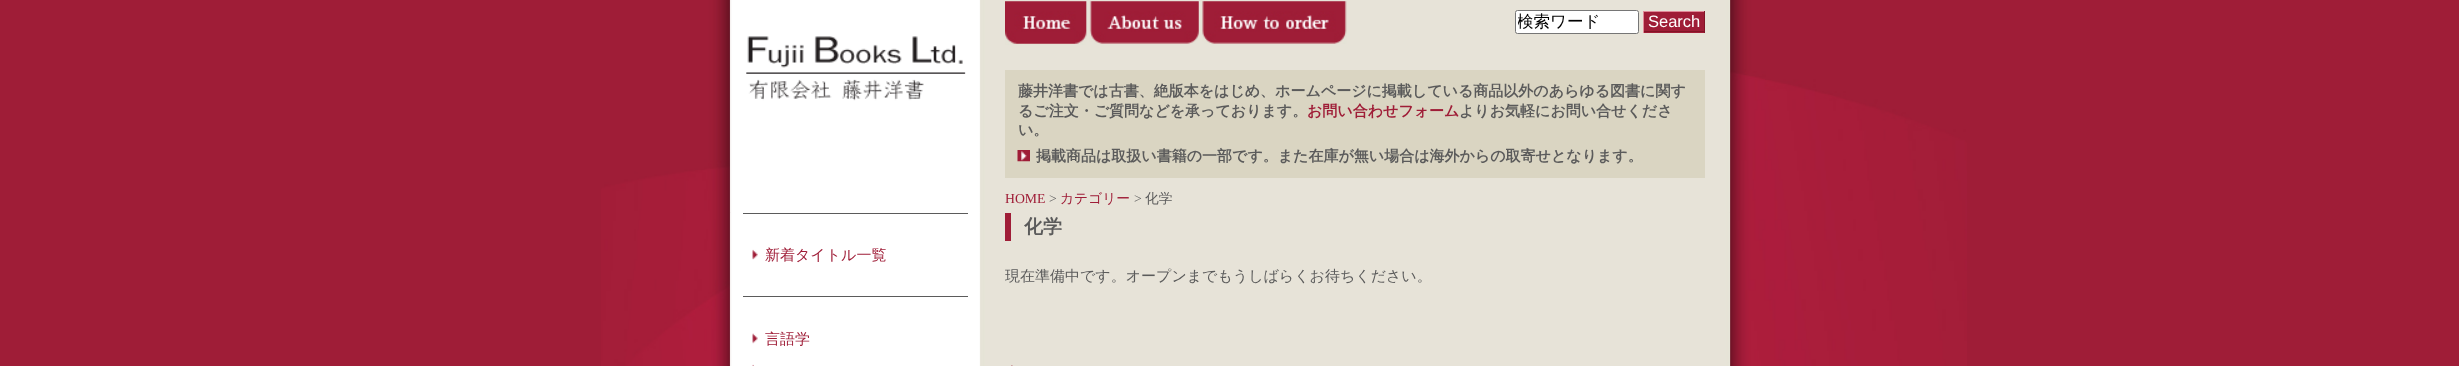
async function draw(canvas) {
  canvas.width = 2459
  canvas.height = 366
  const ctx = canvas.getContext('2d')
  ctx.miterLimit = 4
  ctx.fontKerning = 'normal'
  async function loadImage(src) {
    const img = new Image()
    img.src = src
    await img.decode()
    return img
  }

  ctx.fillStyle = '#9f1d37'
  ctx.fillRect(0, 0, 2459, 366)
  ctx.drawImage(await loadImage('image0.png'), 601, 0, 1366, 366)
  ctx.drawImage(await loadImage('image1.png'), 730, 0, 1000, 213)
  ctx.drawImage(await loadImage('image2.png'), 746, 36, 220, 65)
  ctx.drawImage(await loadImage('image3.png'), 1005, 1, 82, 44)
  ctx.drawImage(await loadImage('image4.png'), 1089, 1, 110, 43)
  ctx.drawImage(await loadImage('image5.png'), 1202, 1, 145, 43)
  ctx.fillStyle = '#fff'
  ctx.beginPath()
  ctx.roundRect(1515.5, 10.5, 123, 23, 2)
  ctx.fill()
  ctx.strokeStyle = '#767676'
  ctx.stroke()
  ctx.save()
  ctx.beginPath()
  ctx.rect(1518, 13, 118, 18)
  ctx.clip()
  ctx.font = '500 16.5px WenQuanYi Zen Hei'
  ctx.fillStyle = '#000'
  ctx.fillText('検索ワード', 1517, 27)
  ctx.restore()
  ctx.fillStyle = '#9f1d37'
  ctx.fillRect(1644, 12, 60, 21)
  ctx.fillStyle = '#e08a98'
  ctx.fillRect(1643, 11, 62, 1)
  ctx.fillStyle = '#831427'
  ctx.fillRect(1704, 11, 1, 22)
  ctx.fillRect(1643, 31, 62, 1)
  ctx.fillStyle = '#e08a98'
  ctx.fillRect(1643, 11, 1, 22)
  ctx.font = '16.5px Liberation Sans'
  ctx.fillStyle = '#fff'
  ctx.fillText('Search', 1648, 27)
  ctx.fillStyle = '#dad5c2'
  ctx.fillRect(1005, 70, 700, 108)
  ctx.font = 'bold 15px WenQuanYi Zen Hei'
  ctx.fillStyle = '#5b5b5b'
  ctx.fillText('藤井洋書では古書、絶版本をはじめ、ホームページに掲載している商品以外のあらゆる図書に関す', 1018, 96)
  ctx.fillText('るご注文・ご質問などを承っております。', 1018, 116)
  ctx.fillStyle = '#9f1d37'
  ctx.fillText('お問い合わせフォーム', 1307, 116)
  ctx.fillStyle = '#5b5b5b'
  ctx.fillText('よりお気軽にお問い合せくださ', 1459, 116)
  ctx.fillText('い。', 1018, 135)
  ctx.drawImage(await loadImage('image6.png'), 1017, 150, 13, 12)
  ctx.fillText('掲載商品は取扱い書籍の一部です。また在庫が無い場合は海外からの取寄せとなります。', 1036, 161)
  ctx.font = '13.75px Liberation Serif'
  ctx.fillStyle = '#9f1d37'
  ctx.fillText('HOME', 1005, 203)
  ctx.fillStyle = '#5b5b5b'
  ctx.fillText('>', 1049, 203)
  ctx.font = '500 13.75px WenQuanYi Zen Hei'
  ctx.fillStyle = '#9f1d37'
  ctx.fillText('カテゴリー', 1060, 203)
  ctx.font = '13.75px Liberation Serif'
  ctx.fillStyle = '#5b5b5b'
  ctx.fillText('>', 1134, 203)
  ctx.font = '500 13.75px WenQuanYi Zen Hei'
  ctx.fillText('化学', 1145, 203)
  ctx.drawImage(await loadImage('image7.png'), 730, 212, 1000, 154)
  ctx.fillRect(743, 213, 225, 1)
  ctx.drawImage(await loadImage('image8.png'), 752, 249, 6, 11)
  ctx.font = '500 15px WenQuanYi Zen Hei'
  ctx.fillStyle = '#9f1d37'
  ctx.fillText('新着タイトル一覧', 765, 260)
  ctx.fillStyle = '#5b5b5b'
  ctx.fillRect(743, 296, 225, 1)
  ctx.drawImage(await loadImage('image9.png'), 752, 333, 6, 11)
  ctx.fillStyle = '#9f1d37'
  ctx.fillText('言語学', 765, 344)
  ctx.drawImage(await loadImage('image10.png'), 752, 364, 2, 2)
  ctx.fillRect(1005, 213, 6, 28)
  ctx.font = 'bold 19px WenQuanYi Zen Hei'
  ctx.fillStyle = '#5b5b5b'
  ctx.fillText('化学', 1024, 233)
  ctx.font = '500 15px WenQuanYi Zen Hei'
  ctx.fillText('現在準備中です。オープンまでもうしばらくお待ちください。', 1005, 281)
  ctx.drawImage(await loadImage('image11.png'), 1011, 365, 2, 1)
}

draw(document.querySelector('canvas'))
